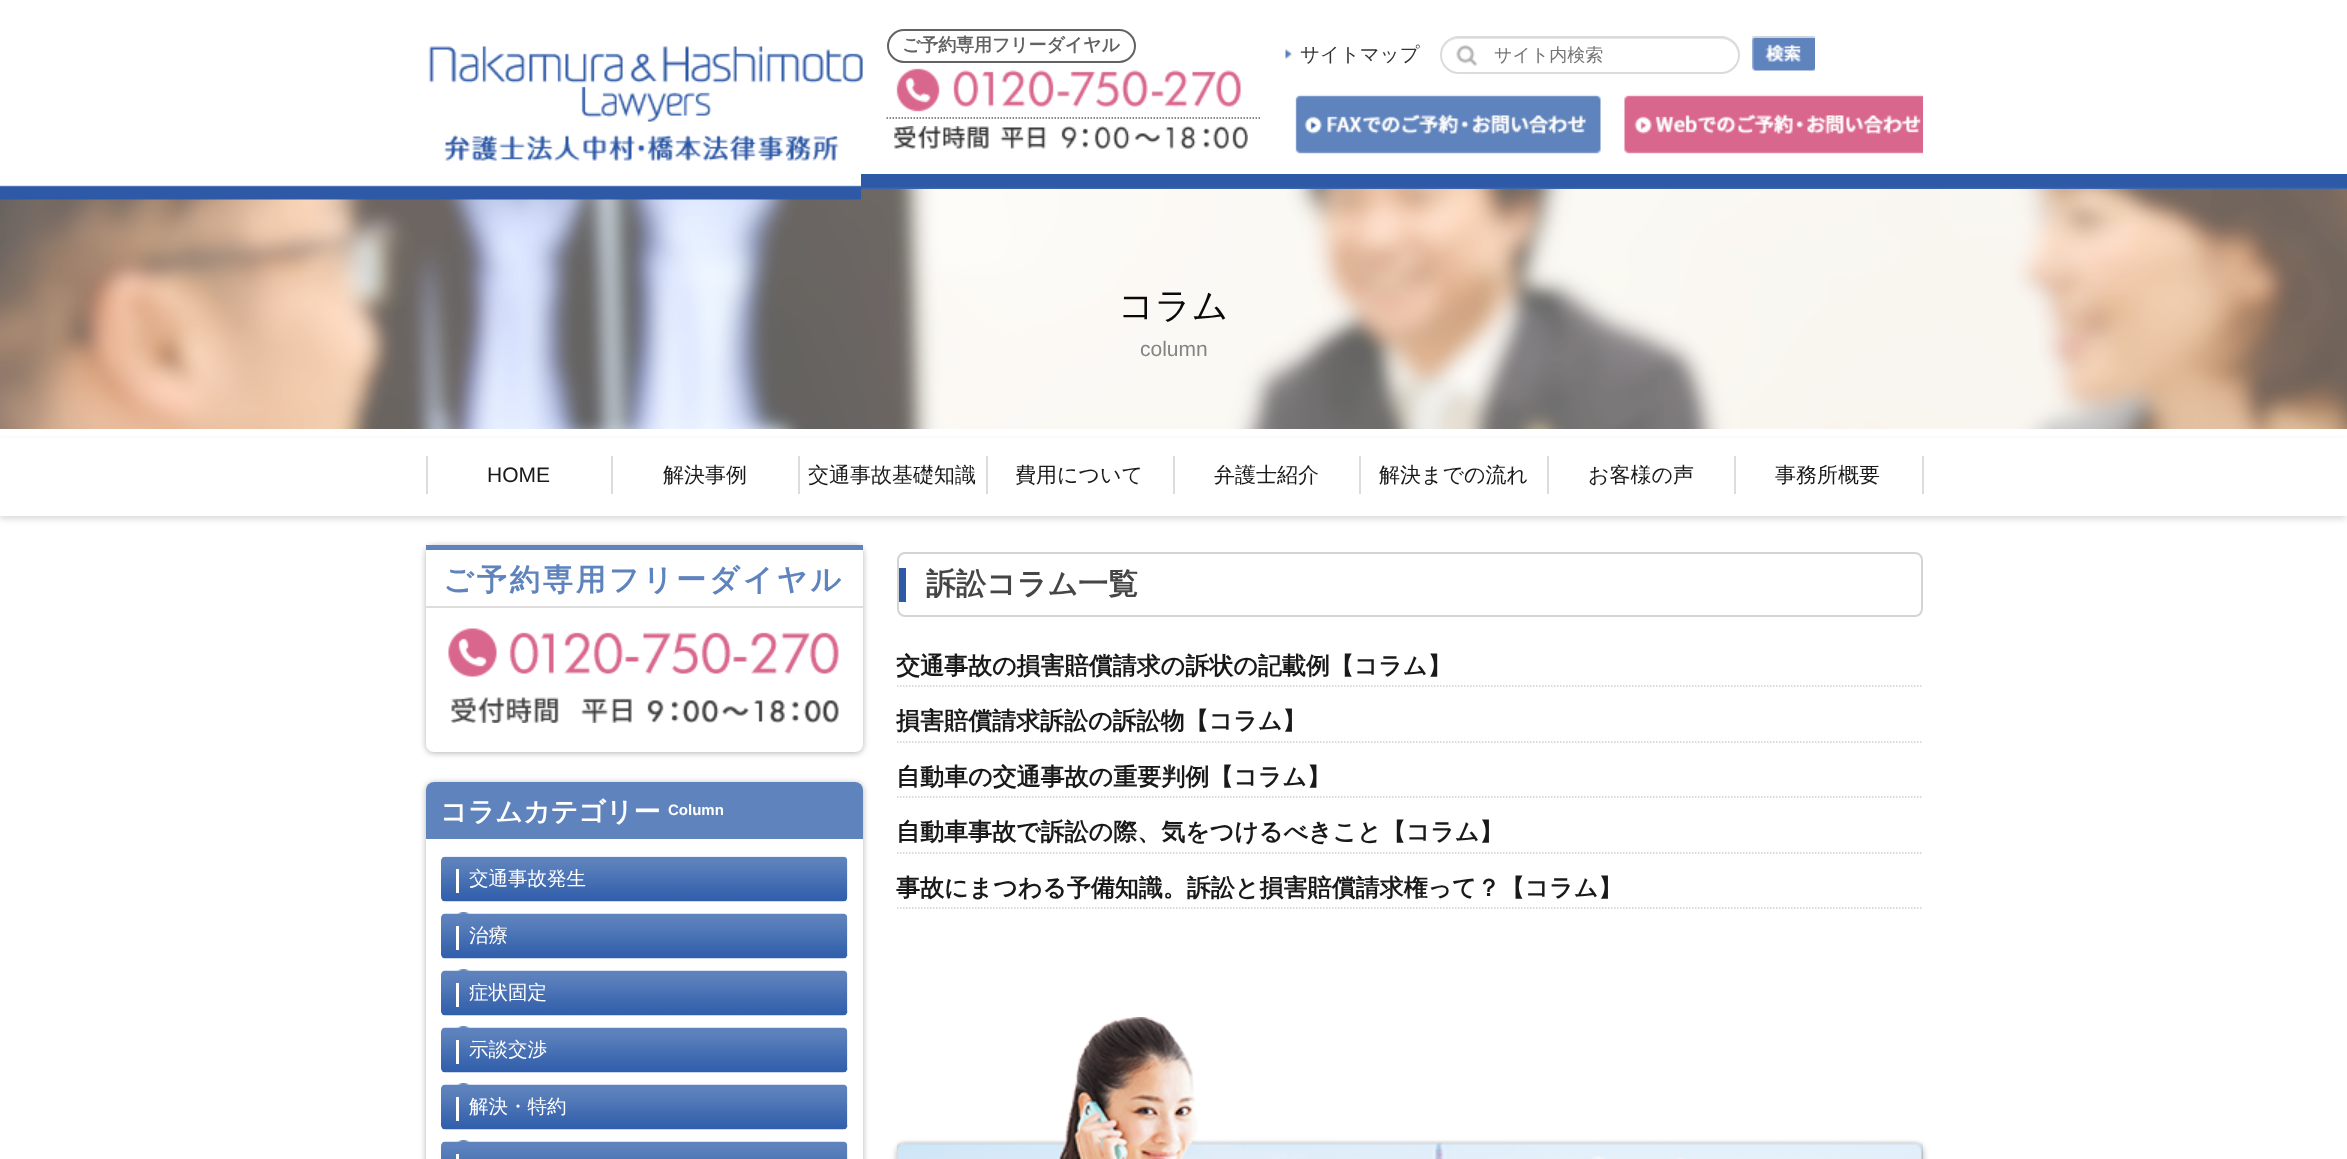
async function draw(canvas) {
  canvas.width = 2347
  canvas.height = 1159
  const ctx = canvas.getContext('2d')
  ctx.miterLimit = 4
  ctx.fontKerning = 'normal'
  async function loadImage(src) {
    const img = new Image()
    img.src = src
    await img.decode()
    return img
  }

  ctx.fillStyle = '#fff'
  ctx.fillRect(0, 0, 2347, 1159)
  ctx.drawImage(await loadImage('image0.png'), 861, 174, 1486, 15)
  ctx.drawImage(await loadImage('image1.png'), 428, 46, 435, 115)
  ctx.beginPath()
  ctx.roundRect(888, 30, 247, 32, 16)
  ctx.strokeStyle = '#626262'
  ctx.lineWidth = 2
  ctx.stroke()
  ctx.letterSpacing = '-0.1px'
  ctx.font = 'bold 18px WenQuanYi Zen Hei'
  ctx.fillStyle = '#626262'
  ctx.fillText('ご予約専用フリーダイヤル', 902, 51)
  ctx.beginPath()
  ctx.moveTo(886.5, 118)
  ctx.lineTo(1261.5, 118)
  ctx.lineWidth = 1.5
  ctx.setLineDash([1.5, 1.5])
  ctx.stroke()
  ctx.drawImage(await loadImage('image2.png'), 896, 68, 345, 44)
  ctx.drawImage(await loadImage('image3.png'), 894, 126, 354, 23)
  ctx.drawImage(await loadImage('image4.png'), 1285, 49, 7, 10)
  ctx.letterSpacing = '0px'
  ctx.font = '500 19.5px WenQuanYi Zen Hei'
  ctx.fillStyle = '#333'
  ctx.fillText('サイトマップ', 1300, 61)
  ctx.drawImage(await loadImage('image5.png'), 1456, 45, 22, 21)
  ctx.fillStyle = '#e5e5e5'
  ctx.beginPath()
  ctx.moveTo(1459, 39)
  ctx.lineTo(1721, 39)
  ctx.bezierCurveTo(1736, 39, 1744, 57, 1734, 67)
  ctx.bezierCurveTo(1737, 64, 1739, 60, 1739, 55)
  ctx.bezierCurveTo(1739, 46, 1731, 38, 1722, 38)
  ctx.lineTo(1459, 38)
  ctx.bezierCurveTo(1451, 38, 1445, 43, 1443, 50)
  ctx.bezierCurveTo(1445, 44, 1450, 39, 1459, 39)
  ctx.closePath()
  ctx.fill()
  ctx.beginPath()
  ctx.roundRect(1441, 37, 298, 36, 18)
  ctx.strokeStyle = '#dbdbdb'
  ctx.lineWidth = 2
  ctx.setLineDash([])
  ctx.stroke()
  ctx.font = '500 18px WenQuanYi Zen Hei'
  ctx.fillStyle = '#757575'
  ctx.fillText('サイト内検索', 1494, 61)
  ctx.drawImage(await loadImage('image6.png'), 1752, 36, 63, 35)
  ctx.fillStyle = '#e1e1e1db'
  ctx.fillRect(1752, 36, 63, 2)
  ctx.drawImage(await loadImage('image7.png'), 1295, 94, 306, 60)
  ctx.drawImage(await loadImage('image8.png'), 1624, 94, 299, 60)
  ctx.drawImage(await loadImage('image10.png'), 0, 189, 2347, 240)
  ctx.drawImage(await loadImage('image9.png'), 0, 174, 861, 26)
  ctx.font = '500 36px WenQuanYi Zen Hei'
  ctx.fillStyle = '#090909'
  ctx.fillText('コラム', 1118, 318)
  ctx.font = '21px Liberation Sans'
  ctx.fillStyle = '#848484'
  ctx.fillText('column', 1140, 356)
  ctx.save()
  ctx.beginPath()
  ctx.moveTo(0, 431)
  ctx.lineTo(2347, 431)
  ctx.lineTo(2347, 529)
  ctx.lineTo(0, 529)
  ctx.closePath()
  ctx.moveTo(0, 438)
  ctx.lineTo(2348, 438)
  ctx.lineTo(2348, 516)
  ctx.lineTo(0, 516)
  ctx.closePath()
  ctx.clip('evenodd')
  ctx.fillStyle = '#77777745'
  ctx.filter = 'blur(3px)'
  ctx.beginPath()
  ctx.rect(-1, 441, 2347, 78)
  ctx.fill()
  ctx.filter = 'none'
  ctx.restore()
  ctx.fillStyle = '#dcdcdc'
  ctx.fillRect(611, 456, 2, 38)
  ctx.fillRect(426, 456, 2, 38)
  ctx.fillStyle = '#191919'
  ctx.fillText('HOME', 487, 482)
  ctx.fillStyle = '#dcdcdc'
  ctx.fillRect(798, 456, 2, 38)
  ctx.font = '500 21px WenQuanYi Zen Hei'
  ctx.fillStyle = '#191919'
  ctx.fillText('解決事例', 663, 482)
  ctx.fillStyle = '#dcdcdc'
  ctx.fillRect(986, 456, 2, 38)
  ctx.fillStyle = '#191919'
  ctx.fillText('交通事故基礎知識', 808, 482)
  ctx.fillStyle = '#dcdcdc'
  ctx.fillRect(1173, 456, 2, 38)
  ctx.fillStyle = '#191919'
  ctx.fillText('費用について', 1015, 482)
  ctx.fillStyle = '#dcdcdc'
  ctx.fillRect(1359, 456, 2, 38)
  ctx.fillStyle = '#191919'
  ctx.fillText('弁護士紹介', 1214, 482)
  ctx.fillStyle = '#dcdcdc'
  ctx.fillRect(1547, 456, 2, 38)
  ctx.fillStyle = '#191919'
  ctx.fillText('解決までの流れ', 1379, 482)
  ctx.fillStyle = '#dcdcdc'
  ctx.fillRect(1734, 456, 2, 38)
  ctx.fillStyle = '#191919'
  ctx.fillText('お客様の声', 1588, 482)
  ctx.fillStyle = '#dcdcdc'
  ctx.fillRect(1922, 456, 2, 38)
  ctx.fillStyle = '#191919'
  ctx.fillText('事務所概要', 1775, 482)
  ctx.save()
  ctx.beginPath()
  ctx.moveTo(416, 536)
  ctx.lineTo(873, 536)
  ctx.lineTo(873, 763)
  ctx.lineTo(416, 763)
  ctx.closePath()
  ctx.moveTo(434, 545)
  ctx.lineTo(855, 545)
  ctx.bezierCurveTo(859.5, 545, 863, 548.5, 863, 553)
  ctx.lineTo(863, 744)
  ctx.bezierCurveTo(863, 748.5, 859.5, 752, 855, 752)
  ctx.lineTo(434, 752)
  ctx.bezierCurveTo(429.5, 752, 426, 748.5, 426, 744)
  ctx.lineTo(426, 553)
  ctx.bezierCurveTo(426, 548.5, 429.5, 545, 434, 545)
  ctx.closePath()
  ctx.clip('evenodd')
  ctx.fillStyle = '#65656580'
  ctx.filter = 'blur(3px)'
  ctx.beginPath()
  ctx.roundRect(426, 546, 437, 207, 8)
  ctx.fill()
  ctx.filter = 'none'
  ctx.restore()
  ctx.fillStyle = '#5f83bd'
  ctx.fillRect(426, 545, 437, 5)
  ctx.fillStyle = '#ddd'
  ctx.fillRect(426, 606, 437, 2)
  ctx.letterSpacing = '3px'
  ctx.font = 'bold 30px WenQuanYi Zen Hei'
  ctx.fillStyle = '#5f83bd'
  ctx.fillText('ご予約専用フリーダイヤル', 443, 590)
  ctx.drawImage(await loadImage('image11.png'), 448, 628, 391, 49)
  ctx.drawImage(await loadImage('image12.png'), 450, 697, 389, 26)
  ctx.save()
  ctx.beginPath()
  ctx.moveTo(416, 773)
  ctx.lineTo(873, 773)
  ctx.lineTo(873, 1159)
  ctx.lineTo(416, 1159)
  ctx.closePath()
  ctx.moveTo(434, 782)
  ctx.lineTo(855, 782)
  ctx.bezierCurveTo(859.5, 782, 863, 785.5, 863, 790)
  ctx.lineTo(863, 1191)
  ctx.bezierCurveTo(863, 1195.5, 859.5, 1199, 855, 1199)
  ctx.lineTo(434, 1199)
  ctx.bezierCurveTo(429.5, 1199, 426, 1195.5, 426, 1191)
  ctx.lineTo(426, 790)
  ctx.bezierCurveTo(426, 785.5, 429.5, 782, 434, 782)
  ctx.closePath()
  ctx.clip('evenodd')
  ctx.fillStyle = '#65656580'
  ctx.filter = 'blur(3px)'
  ctx.beginPath()
  ctx.roundRect(426, 783, 437, 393, 8)
  ctx.fill()
  ctx.filter = 'none'
  ctx.restore()
  ctx.beginPath()
  ctx.roundRect(426, 782, 437, 57, [8, 8, 0, 0])
  ctx.fill()
  ctx.letterSpacing = '0px'
  ctx.font = 'bold 27px WenQuanYi Zen Hei'
  ctx.fillStyle = '#fff'
  ctx.fillText('コラムカテゴリー', 440, 821)
  ctx.font = 'bold 15px Liberation Sans'
  ctx.fillText('Column', 668, 815)
  ctx.drawImage(await loadImage('image13.png'), 441, 856, 407, 46)
  ctx.fillRect(456, 869, 3, 24)
  ctx.font = '500 19.5px WenQuanYi Zen Hei'
  ctx.fillText('交通事故発生', 469, 885)
  ctx.drawImage(await loadImage('image14.png'), 457, 912, 13, 2)
  ctx.beginPath()
  ctx.moveTo(456, 955)
  ctx.lineTo(847.5, 955)
  ctx.strokeStyle = '#bcbcbc'
  ctx.lineWidth = 1.5
  ctx.setLineDash([1.5, 1.5])
  ctx.stroke()
  ctx.drawImage(await loadImage('image15.png'), 441, 913, 407, 46)
  ctx.fillRect(456, 926, 3, 24)
  ctx.fillText('治療', 469, 942)
  ctx.drawImage(await loadImage('image14.png'), 457, 969, 13, 2)
  ctx.beginPath()
  ctx.moveTo(456, 1012)
  ctx.lineTo(847.5, 1012)
  ctx.stroke()
  ctx.drawImage(await loadImage('image16.png'), 441, 970, 407, 46)
  ctx.fillRect(456, 983, 3, 24)
  ctx.fillText('症状固定', 469, 999)
  ctx.drawImage(await loadImage('image14.png'), 457, 1026, 13, 2)
  ctx.beginPath()
  ctx.moveTo(456, 1069)
  ctx.lineTo(847.5, 1069)
  ctx.stroke()
  ctx.drawImage(await loadImage('image17.png'), 441, 1027, 407, 46)
  ctx.fillRect(456, 1040, 3, 24)
  ctx.fillText('示談交渉', 469, 1056)
  ctx.drawImage(await loadImage('image14.png'), 457, 1083, 13, 2)
  ctx.beginPath()
  ctx.moveTo(456, 1126)
  ctx.lineTo(847.5, 1126)
  ctx.stroke()
  ctx.drawImage(await loadImage('image18.png'), 441, 1084, 407, 46)
  ctx.fillRect(456, 1097, 3, 24)
  ctx.fillText('解決・特約', 469, 1113)
  ctx.drawImage(await loadImage('image14.png'), 457, 1140, 13, 2)
  ctx.drawImage(await loadImage('image19.png'), 441, 1141, 407, 18)
  ctx.fillRect(456, 1154, 3, 5)
  ctx.fillStyle = '#2e59a7'
  ctx.fillRect(899, 568, 7, 34)
  ctx.beginPath()
  ctx.roundRect(898, 553, 1024, 63, 7)
  ctx.strokeStyle = '#d4d4d4'
  ctx.lineWidth = 2
  ctx.setLineDash([])
  ctx.stroke()
  ctx.font = 'bold 30px WenQuanYi Zen Hei'
  ctx.fillStyle = '#464646'
  ctx.fillText('訴訟コラム一覧', 926, 594)
  ctx.beginPath()
  ctx.moveTo(897, 686)
  ctx.lineTo(1923, 686)
  ctx.strokeStyle = '#d1d0d0'
  ctx.lineWidth = 1.5
  ctx.setLineDash([1.5, 1.5])
  ctx.stroke()
  ctx.font = 'bold 24px WenQuanYi Zen Hei'
  ctx.fillStyle = '#191919'
  ctx.fillText('交通事故の損害賠償請求の訴状の記載例【コラム】', 896, 674)
  ctx.beginPath()
  ctx.moveTo(897, 742)
  ctx.lineTo(1923, 742)
  ctx.stroke()
  ctx.fillText('損害賠償請求訴訟の訴訟物【コラム】', 896, 729)
  ctx.beginPath()
  ctx.moveTo(897, 797)
  ctx.lineTo(1923, 797)
  ctx.stroke()
  ctx.fillText('自動車の交通事故の重要判例【コラム】', 896, 785)
  ctx.beginPath()
  ctx.moveTo(897, 853)
  ctx.lineTo(1923, 853)
  ctx.stroke()
  ctx.fillText('自動車事故で訴訟の際、気をつけるべきこと【コラム】', 896, 840)
  ctx.beginPath()
  ctx.moveTo(897, 908)
  ctx.lineTo(1923, 908)
  ctx.stroke()
  ctx.fillText('事故にまつわる予備知識。訴訟と損害賠償請求権って？【コラム】', 896, 896)
  ctx.save()
  ctx.beginPath()
  ctx.moveTo(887, 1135)
  ctx.lineTo(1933, 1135)
  ctx.lineTo(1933, 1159)
  ctx.lineTo(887, 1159)
  ctx.closePath()
  ctx.moveTo(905, 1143)
  ctx.lineTo(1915, 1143)
  ctx.bezierCurveTo(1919.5, 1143, 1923, 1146.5, 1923, 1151)
  ctx.lineTo(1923, 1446)
  ctx.bezierCurveTo(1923, 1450.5, 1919.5, 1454, 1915, 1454)
  ctx.lineTo(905, 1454)
  ctx.bezierCurveTo(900.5, 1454, 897, 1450.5, 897, 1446)
  ctx.lineTo(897, 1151)
  ctx.bezierCurveTo(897, 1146.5, 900.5, 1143, 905, 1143)
  ctx.closePath()
  ctx.clip('evenodd')
  ctx.fillStyle = '#65656580'
  ctx.filter = 'blur(3px)'
  ctx.beginPath()
  ctx.roundRect(897, 1145, 1026, 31, 8)
  ctx.fill()
  ctx.filter = 'none'
  ctx.restore()
  ctx.drawImage(await loadImage('image20.png'), 897, 1017, 1026, 142)
}

draw(document.querySelector('canvas'))
